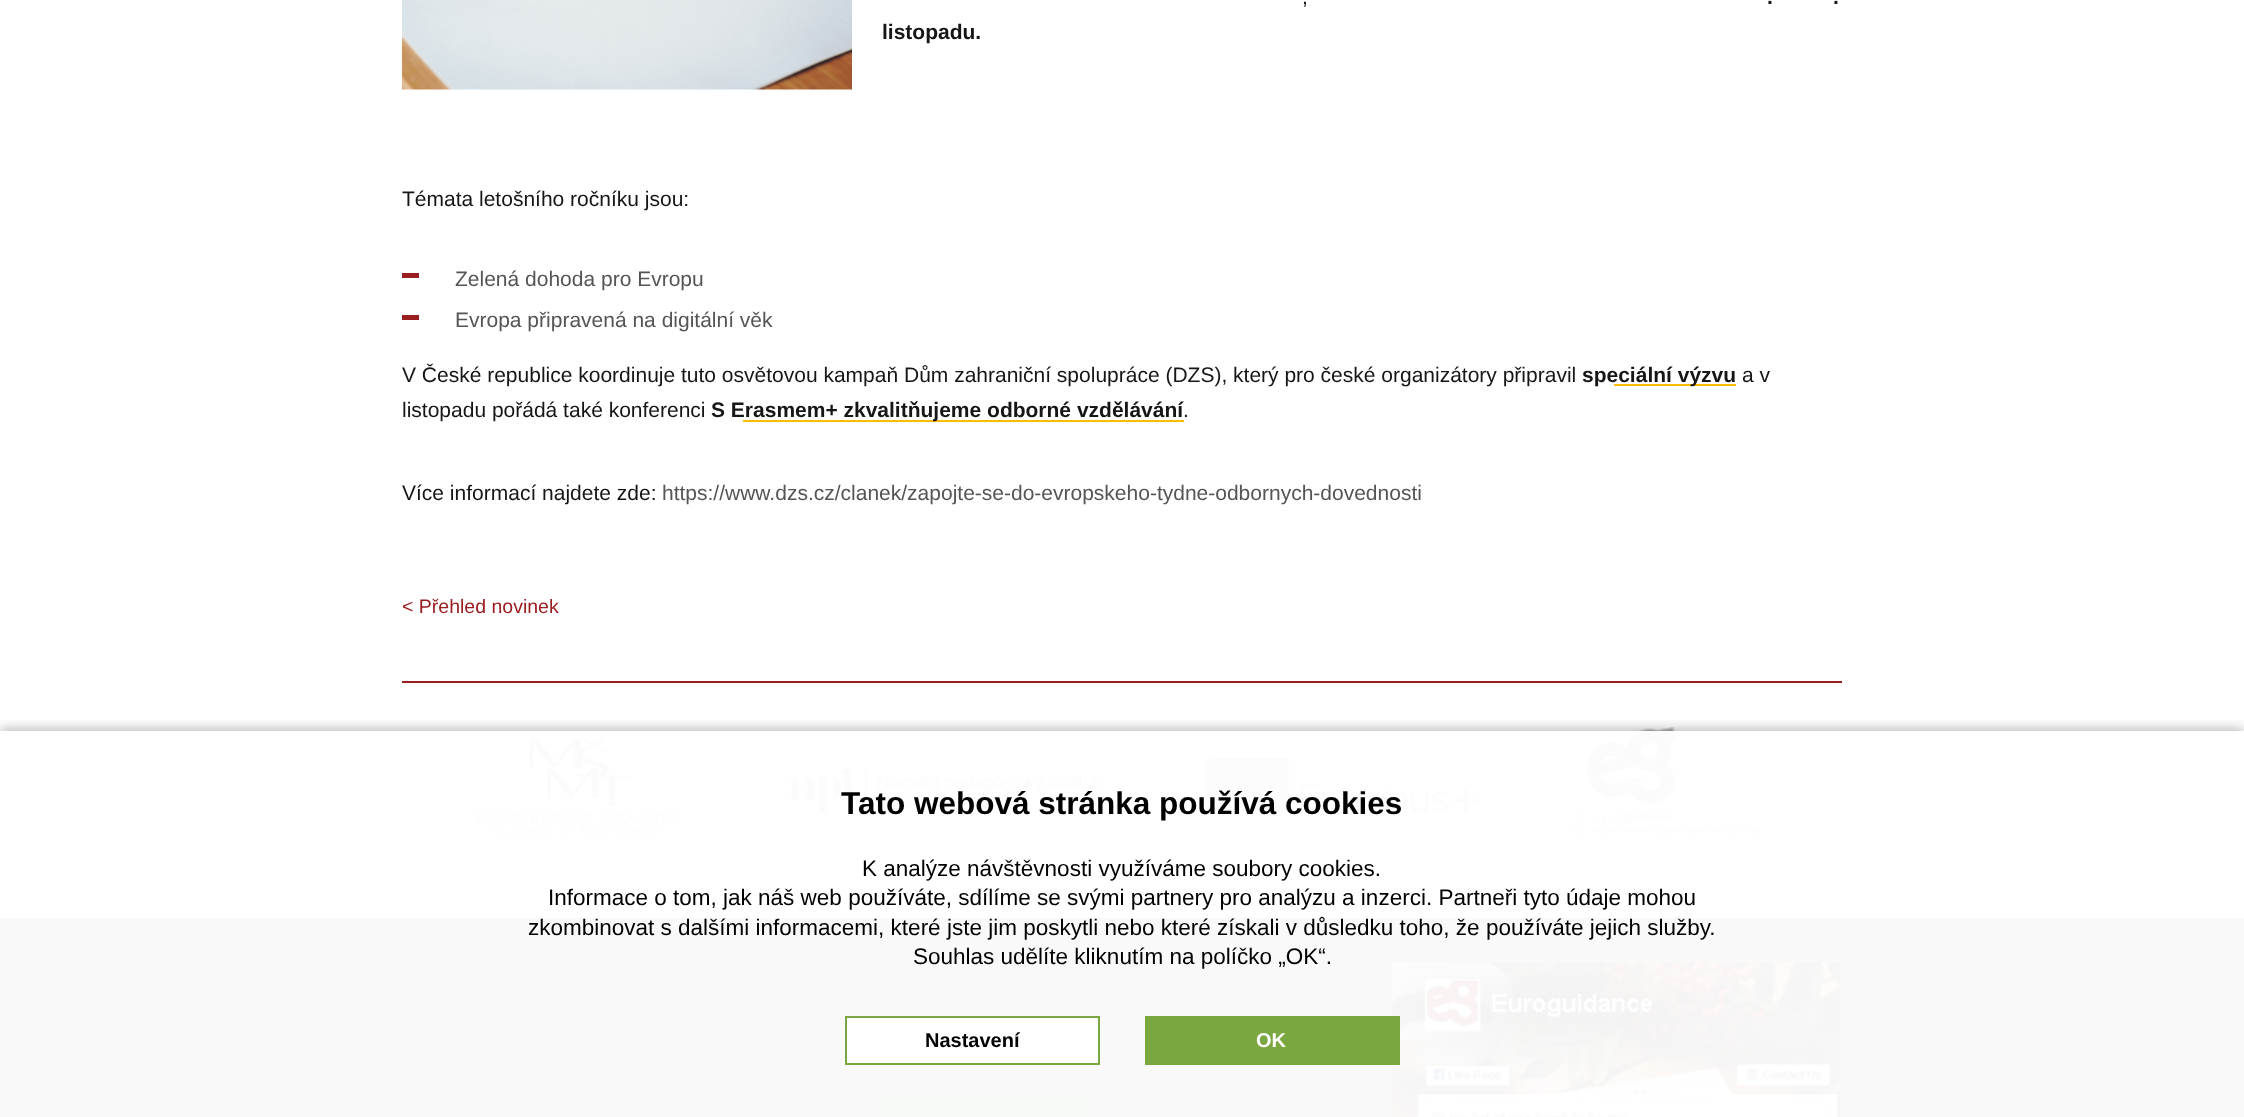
async function draw(canvas) {
  canvas.width = 2244
  canvas.height = 1117
  const ctx = canvas.getContext('2d')
  ctx.miterLimit = 4
  ctx.fontKerning = 'normal'
  async function loadImage(src) {
    const img = new Image()
    img.src = src
    await img.decode()
    return img
  }

  ctx.fillStyle = '#fff'
  ctx.fillRect(0, 0, 2244, 1117)
  ctx.drawImage(await loadImage('image0.png'), 402, 0, 450, 90)
  ctx.font = '21px Liberation Sans'
  ctx.fillStyle = '#161616'
  ctx.fillText(',', 1302, 4)
  ctx.font = 'bold 21px Liberation Sans'
  ctx.fillText('.', 1767, 4)
  ctx.fillText('.', 1833, 4)
  ctx.fillText('listopadu.', 882, 39)
  ctx.font = '21px Liberation Sans'
  ctx.fillText('Témata letošního ročníku jsou:', 402, 206)
  ctx.fillStyle = '#9a1d20'
  ctx.fillRect(402, 273, 17, 5)
  ctx.fillStyle = '#555'
  ctx.fillText('Zelená dohoda pro Evropu', 455, 286)
  ctx.fillStyle = '#9a1d20'
  ctx.fillRect(402, 315, 17, 5)
  ctx.fillStyle = '#555'
  ctx.fillText('Evropa připravená na digitální věk', 455, 327)
  ctx.fillStyle = '#161616'
  ctx.fillText('V České republice koordinuje tuto osvětovou kampaň Dům zahraniční spolupráce (DZS), který pro české organizátory připravil', 402, 382)
  ctx.fillStyle = '#fabd00'
  ctx.fillRect(1614, 384, 122, 2)
  ctx.font = 'bold 21px Liberation Sans'
  ctx.fillStyle = '#161616'
  ctx.fillText('speciální výzvu', 1582, 382)
  ctx.font = '21px Liberation Sans'
  ctx.fillText('a v', 1742, 382)
  ctx.fillText('listopadu pořádá také konferenci', 402, 417)
  ctx.fillStyle = '#fabd00'
  ctx.fillRect(743, 420, 441, 2)
  ctx.font = 'bold 21px Liberation Sans'
  ctx.fillStyle = '#161616'
  ctx.fillText('S Erasmem+ zkvalitňujeme odborné vzdělávání', 711, 417)
  ctx.font = '21px Liberation Sans'
  ctx.fillText('.', 1183, 417)
  ctx.fillText('Více informací najdete zde:', 402, 500)
  ctx.fillStyle = '#555'
  ctx.fillText('https://www.dzs.cz/clanek/zapojte-se-do-evropskeho-tydne-odbornych-dovednosti', 662, 500)
  ctx.font = '19.5px Liberation Sans'
  ctx.fillStyle = '#9a1d20'
  ctx.fillText('< Přehled novinek', 402, 613)
  ctx.fillRect(402, 681, 1440, 2)
  ctx.drawImage(await loadImage('image1.png'), 476, 738, 205, 98)
  ctx.drawImage(await loadImage('image2.png'), 789, 766, 310, 48)
  ctx.drawImage(await loadImage('image3.png'), 1205, 755, 274, 68)
  ctx.drawImage(await loadImage('image4.png'), 1572, 727, 188, 109)
  ctx.fillStyle = '#f9f9f9'
  ctx.fillRect(0, 918, 2244, 199)
  ctx.fillStyle = '#f8fbf5'
  ctx.fillRect(882, 1094, 207, 23)
  ctx.drawImage(await loadImage('image5.png'), 1392, 962, 449, 155)
  ctx.save()
  ctx.beginPath()
  ctx.rect(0, 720, 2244, 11)
  ctx.clip()
  ctx.fillStyle = '#00000040'
  ctx.filter = 'blur(6px)'
  ctx.beginPath()
  ctx.rect(0, 728, 2244, 387)
  ctx.fill()
  ctx.filter = 'none'
  ctx.restore()
  ctx.font = 'bold 31.5px Liberation Sans'
  ctx.fillStyle = '#000'
  ctx.fillText('Tato webová stránka používá cookies', 841, 814)
  ctx.font = '22.5px Liberation Sans'
  ctx.fillText('K analýze návštěvnosti využíváme soubory cookies.', 862, 876)
  ctx.fillText('Informace o tom, jak náš web používáte, sdílíme se svými partnery pro analýzu a inzerci. Partneři tyto údaje mohou', 548, 905)
  ctx.fillText('zkombinovat s dalšími informacemi, které jste jim poskytli nebo které získali v důsledku toho, že používáte jejich služby.', 528, 935)
  ctx.fillText('Souhlas udělíte kliknutím na políčko „OK“.', 913, 964)
  ctx.fillStyle = '#fff'
  ctx.beginPath()
  ctx.rect(846, 1017, 253, 47)
  ctx.fill()
  ctx.strokeStyle = '#7ba740'
  ctx.lineWidth = 2
  ctx.stroke()
  ctx.font = 'bold 20px Liberation Sans'
  ctx.fillStyle = '#000'
  ctx.fillText('Nastavení', 925, 1047)
  ctx.fillStyle = '#7ba740'
  ctx.fillRect(1145, 1016, 255, 49)
  ctx.fillStyle = '#fff'
  ctx.fillText('OK', 1256, 1047)
}

draw(document.querySelector('canvas'))
